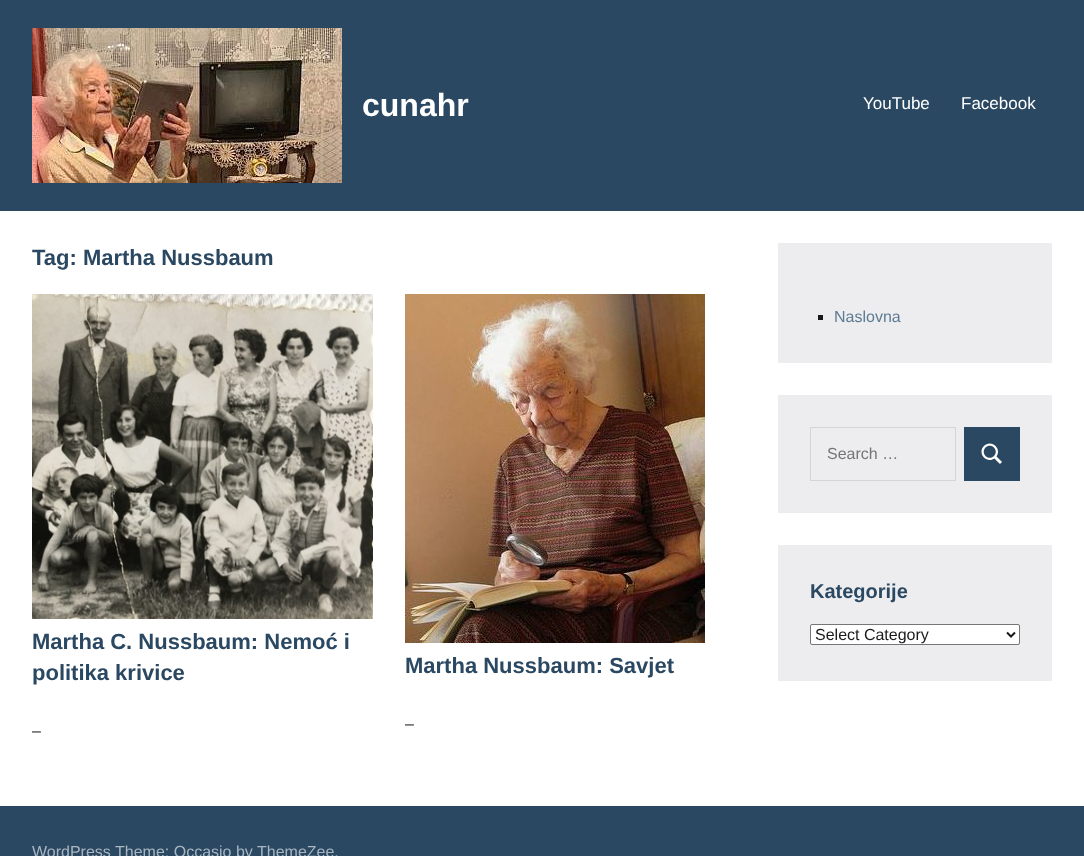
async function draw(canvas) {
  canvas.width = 1084
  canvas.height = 856
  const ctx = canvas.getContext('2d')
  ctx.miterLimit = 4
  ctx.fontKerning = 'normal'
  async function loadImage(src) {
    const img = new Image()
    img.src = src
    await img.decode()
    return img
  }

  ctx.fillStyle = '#2a4861'
  ctx.fillRect(0, 0, 1084, 856)
  ctx.drawImage(await loadImage('image0.png'), 32, 28, 310, 155)
  ctx.font = 'bold 32px Liberation Sans'
  ctx.fillStyle = '#fff'
  ctx.fillText('cunahr', 362, 116)
  ctx.font = '17px Liberation Sans'
  ctx.fillText('YouTube', 863, 109)
  ctx.fillText('Facebook', 961, 109)
  ctx.fillRect(0, 211, 1084, 595)
  ctx.font = 'bold 22px Liberation Sans'
  ctx.fillStyle = '#2a4861'
  ctx.fillText('Tag: Martha Nussbaum', 32, 265)
  ctx.drawImage(await loadImage('image1.png'), 32, 294, 341, 325)
  ctx.fillText('Martha C. Nussbaum: Nemoć i', 32, 649)
  ctx.fillText('politika krivice', 32, 680)
  ctx.font = '16px Liberation Sans'
  ctx.fillStyle = '#1a1a1a'
  ctx.fillText('–', 32, 736)
  ctx.drawImage(await loadImage('image2.png'), 405, 294, 300, 349)
  ctx.font = 'bold 22px Liberation Sans'
  ctx.fillStyle = '#2a4861'
  ctx.fillText('Martha Nussbaum: Savjet', 405, 673)
  ctx.font = '16px Liberation Sans'
  ctx.fillStyle = '#1a1a1a'
  ctx.fillText('–', 405, 729)
  ctx.fillStyle = '#ededef'
  ctx.fillRect(778, 243, 274, 120)
  ctx.fillStyle = '#181818'
  ctx.fillRect(818, 315, 5, 5)
  ctx.fillStyle = '#5d7b94'
  ctx.fillText('Naslovna', 834, 322)
  ctx.fillStyle = '#ededef'
  ctx.fillRect(778, 395, 274, 118)
  ctx.strokeStyle = '#d5d5d7'
  ctx.strokeRect(810.5, 427.5, 145, 53)
  ctx.fillStyle = '#757575'
  ctx.fillText('Search …', 827, 459)
  ctx.fillStyle = '#2a4861'
  ctx.fillRect(964, 427, 56, 54)
  ctx.drawImage(await loadImage('image3.png'), 981, 443, 21, 21)
  ctx.fillStyle = '#ededef'
  ctx.fillRect(778, 545, 274, 136)
  ctx.font = 'bold 20px Liberation Sans'
  ctx.fillStyle = '#2a4861'
  ctx.fillText('Kategorije', 810, 598)
  ctx.fillStyle = '#fff'
  ctx.beginPath()
  ctx.roundRect(810.5, 624.5, 209, 20, 1.5)
  ctx.fill()
  ctx.strokeStyle = '#767676'
  ctx.stroke()
  ctx.beginPath()
  ctx.moveTo(1007, 632.5)
  ctx.lineTo(1011, 636.5)
  ctx.lineTo(1015, 632.5)
  ctx.strokeStyle = '#1a1a1a'
  ctx.lineWidth = 2
  ctx.stroke()
  ctx.font = '16px Liberation Sans'
  ctx.fillStyle = '#1a1a1a'
  ctx.fillText('Select Category', 815, 640)
  ctx.fillStyle = '#aab6c0'
  ctx.fillText('WordPress Theme: Occasio by ThemeZee.', 32, 857)
}

draw(document.querySelector('canvas'))
